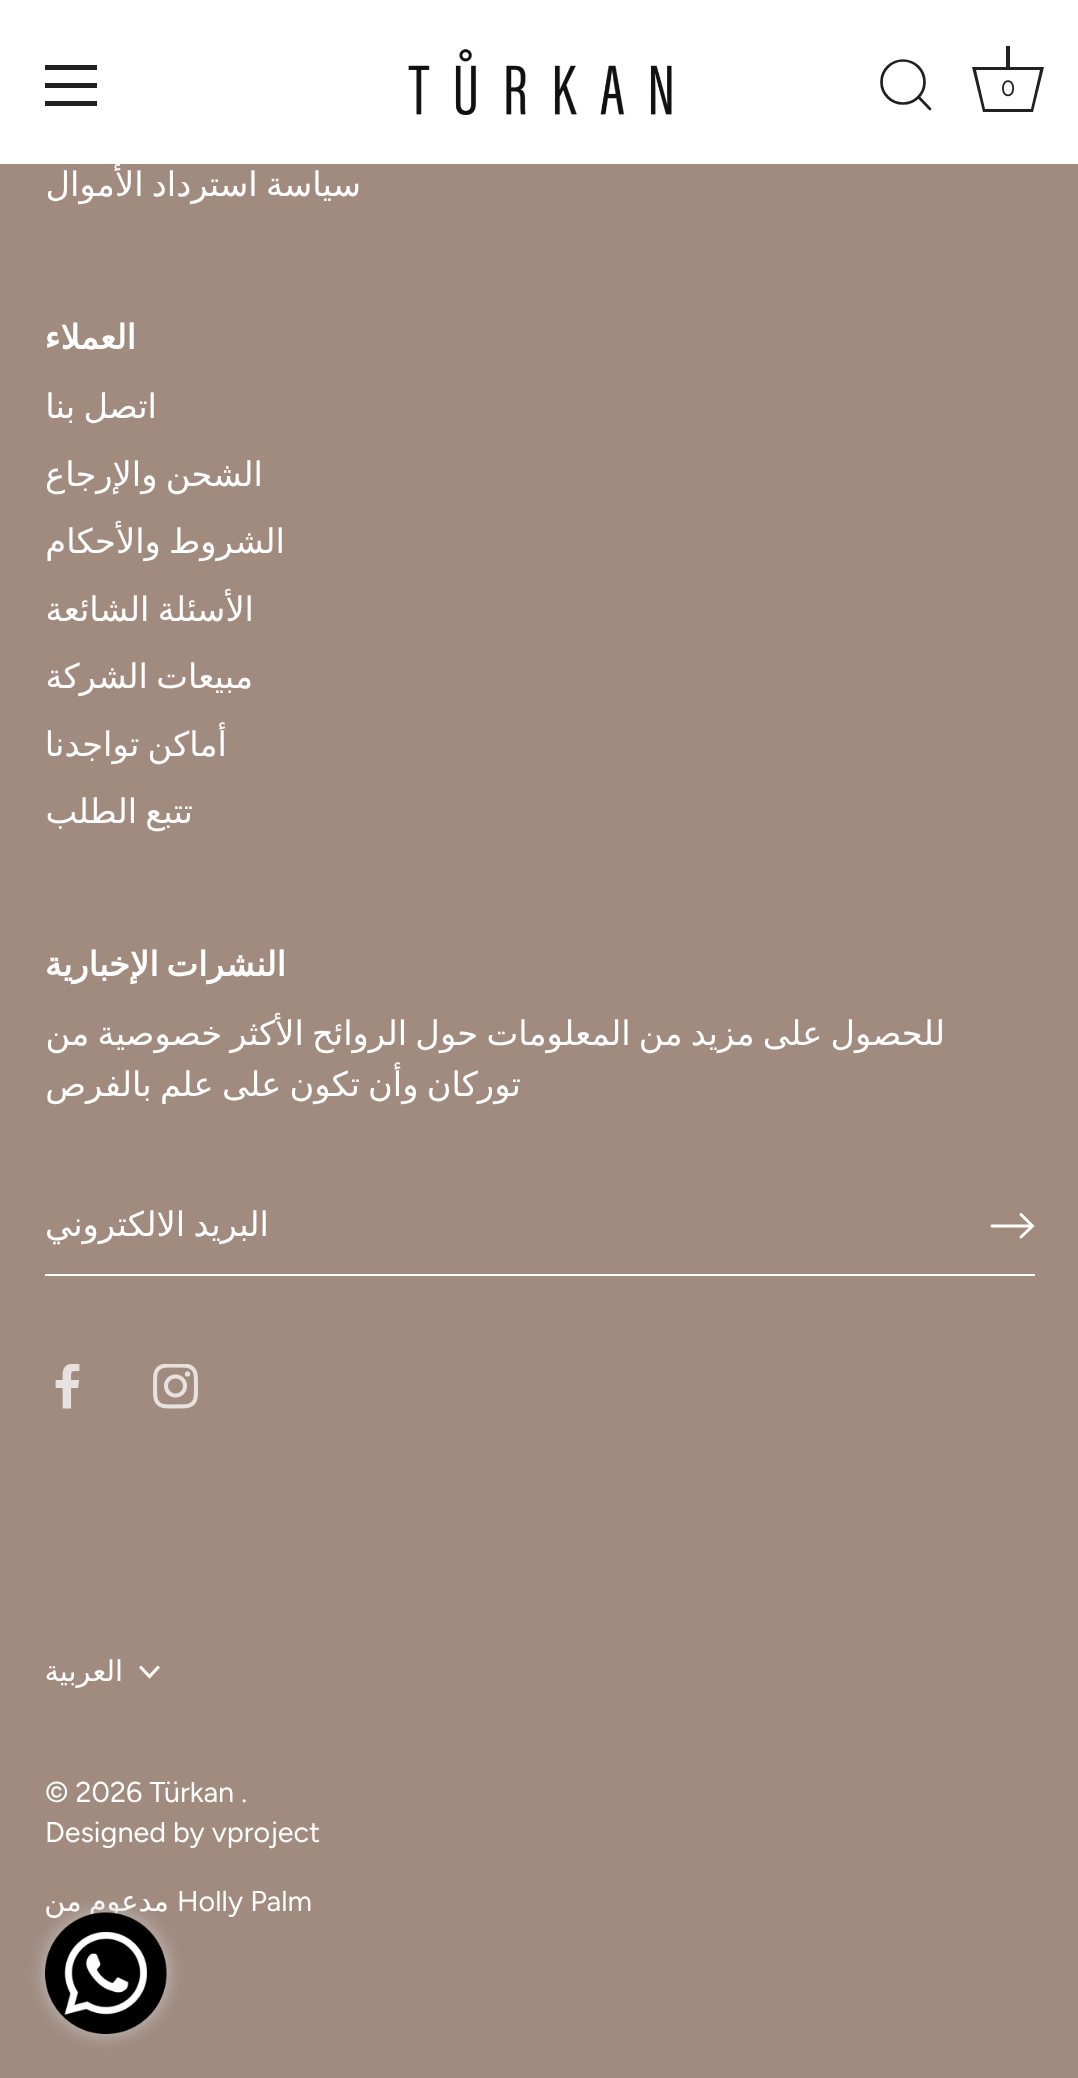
async function draw(canvas) {
  canvas.width = 1078
  canvas.height = 2078
  const ctx = canvas.getContext('2d')
  ctx.miterLimit = 4
  ctx.fontKerning = 'normal'
  async function loadImage(src) {
    const img = new Image()
    img.src = src
    await img.decode()
    return img
  }

  ctx.fillStyle = '#a18b7f'
  ctx.fillRect(0, 0, 1078, 2078)
  ctx.fillStyle = '#fff'
  ctx.fillRect(0, 0, 1078, 164)
  ctx.fillStyle = '#212121'
  ctx.fillRect(1006, 46, 4, 21)
  ctx.beginPath()
  ctx.moveTo(1040, 70)
  ctx.lineTo(1031, 109)
  ctx.lineTo(985, 109)
  ctx.lineTo(976, 70)
  ctx.lineTo(1040, 70)
  ctx.moveTo(1044, 67)
  ctx.lineTo(972, 67)
  ctx.lineTo(983, 112)
  ctx.lineTo(1033, 112)
  ctx.closePath()
  ctx.fill()
  ctx.font = '22px Figtree'
  ctx.fillText('0', 1001, 96)
  ctx.beginPath()
  ctx.arc(903, 82, 21.5, 0, 2 * Math.PI)
  ctx.strokeStyle = '#212121'
  ctx.lineWidth = 2.7
  ctx.stroke()
  ctx.beginPath()
  ctx.moveTo(930, 109)
  ctx.lineTo(918.5, 97)
  ctx.lineCap = 'round'
  ctx.lineJoin = 'round'
  ctx.stroke()
  ctx.drawImage(await loadImage('image0.png'), 408, 49, 264, 67)
  ctx.fillRect(45, 65, 52, 5)
  ctx.fillRect(45, 83, 52, 5)
  ctx.fillRect(45, 101, 52, 5)
  ctx.wordSpacing = '-2.5px'
  ctx.direction = 'rtl'
  ctx.font = '33.75px DejaVu Sans'
  ctx.fillStyle = '#fff'
  ctx.fillText('سياسة استرداد الأموال', 361, 196)
  ctx.wordSpacing = '0px'
  ctx.font = 'bold 33.75px DejaVu Sans'
  ctx.fillText('العملاء', 136, 349)
  ctx.wordSpacing = '-2.5px'
  ctx.font = '33.75px DejaVu Sans'
  ctx.fillText('اتصل بنا', 157, 418)
  ctx.fillText('الشحن والإرجاع', 263, 486)
  ctx.fillText('الشروط والأحكام', 285, 553)
  ctx.fillText('الأسئلة الشائعة', 254, 621)
  ctx.fillText('مبيعات الشركة', 253, 688)
  ctx.fillText('أماكن تواجدنا', 227, 756)
  ctx.fillText('تتبع الطلب', 193, 823)
  ctx.wordSpacing = '-3px'
  ctx.font = 'bold 33.75px DejaVu Sans'
  ctx.fillText('النشرات الإخبارية', 286, 976)
  ctx.wordSpacing = '-2.5px'
  ctx.font = '33.75px DejaVu Sans'
  ctx.fillText('للحصول على مزيد من المعلومات حول الروائح الأكثر خصوصية من', 945, 1045)
  ctx.fillText('توركان وأن تكون على علم بالفرص', 521, 1096)
  ctx.beginPath()
  ctx.moveTo(1021, 1237)
  ctx.lineTo(1032.5, 1226)
  ctx.lineTo(1021, 1214.5)
  ctx.strokeStyle = '#fff'
  ctx.lineWidth = 2.9
  ctx.lineJoin = 'miter'
  ctx.stroke()
  ctx.beginPath()
  ctx.moveTo(1031, 1226)
  ctx.lineTo(992, 1226)
  ctx.lineJoin = 'round'
  ctx.stroke()
  ctx.fillRect(45, 1274, 990, 2)
  ctx.fillText('البريد الالكتروني', 269, 1236)
  ctx.drawImage(await loadImage('image1.png'), 153, 1364, 45, 45)
  ctx.drawImage(await loadImage('image2.png'), 55, 1364, 25, 45)
  ctx.beginPath()
  ctx.moveTo(141, 1667.5)
  ctx.lineTo(149.5, 1676.5)
  ctx.lineTo(158, 1667.5)
  ctx.lineWidth = 3.2
  ctx.lineJoin = 'miter'
  ctx.stroke()
  ctx.wordSpacing = '0px'
  ctx.font = '28.75px DejaVu Sans'
  ctx.fillText('العربية', 123, 1681)
  ctx.direction = 'ltr'
  ctx.font = '28.75px Figtree'
  ctx.fillText('© 2026 Türkan .', 45, 1802)
  ctx.fillText('Designed by vproject', 45, 1842)
  ctx.fillText('Holly Palm', 177, 1911)
  ctx.wordSpacing = '-2px'
  ctx.direction = 'rtl'
  ctx.font = '28.75px DejaVu Sans'
  ctx.fillText('مدعوم من', 169, 1911)
  ctx.fillStyle = '#c2c2c2'
  ctx.filter = 'blur(9px)'
  ctx.beginPath()
  ctx.roundRect(45, 1913, 122, 121, 60.5)
  ctx.fill()
  ctx.filter = 'none'
  ctx.drawImage(await loadImage('image3.png'), 45, 1912, 122, 122)
}

draw(document.querySelector('canvas'))
